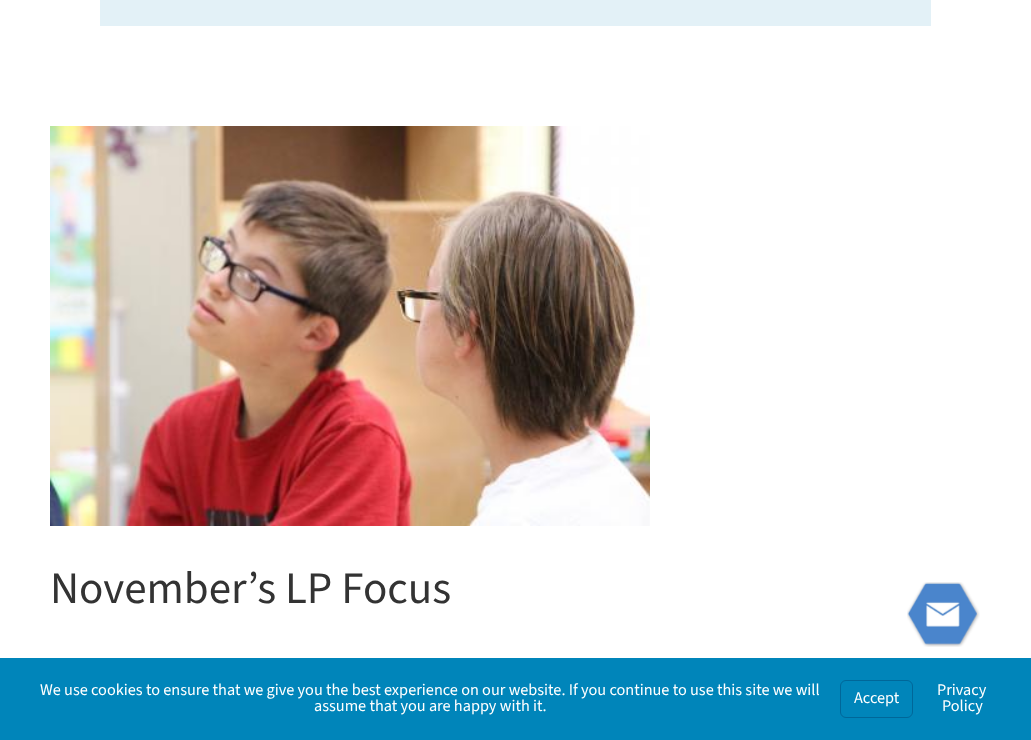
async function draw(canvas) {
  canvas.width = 1031
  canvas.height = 740
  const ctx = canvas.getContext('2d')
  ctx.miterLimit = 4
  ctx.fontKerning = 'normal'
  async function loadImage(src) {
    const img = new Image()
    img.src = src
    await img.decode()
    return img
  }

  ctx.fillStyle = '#fff'
  ctx.fillRect(0, 0, 1031, 740)
  ctx.fillStyle = '#e3f1f7'
  ctx.fillRect(100, 0, 831, 26)
  ctx.drawImage(await loadImage('image0.png'), 50, 126, 600, 400)
  ctx.font = '45px "Source Sans 3"'
  ctx.fillStyle = '#333'
  ctx.fillText('November’s LP Focus', 50, 603)
  ctx.drawImage(await loadImage('image1.png'), 907, 582, 73, 65)
  ctx.fillStyle = '#0085ba'
  ctx.fillRect(0, 658, 1031, 82)
  ctx.font = '16.25px "Source Sans 3"'
  ctx.fillStyle = '#fff'
  ctx.fillText('We use cookies to ensure that we give you the best experience on our website. If you continue to use this site we will', 40, 695)
  ctx.fillText('assume that you are happy with it.', 314, 711)
  ctx.beginPath()
  ctx.roundRect(840.5, 680.5, 72, 37, 5.5)
  ctx.strokeStyle = '#006799'
  ctx.stroke()
  ctx.fillText('Accept', 854, 703)
  ctx.fillText('Privacy', 937, 695)
  ctx.fillText('Policy', 942, 711)
}

draw(document.querySelector('canvas'))
